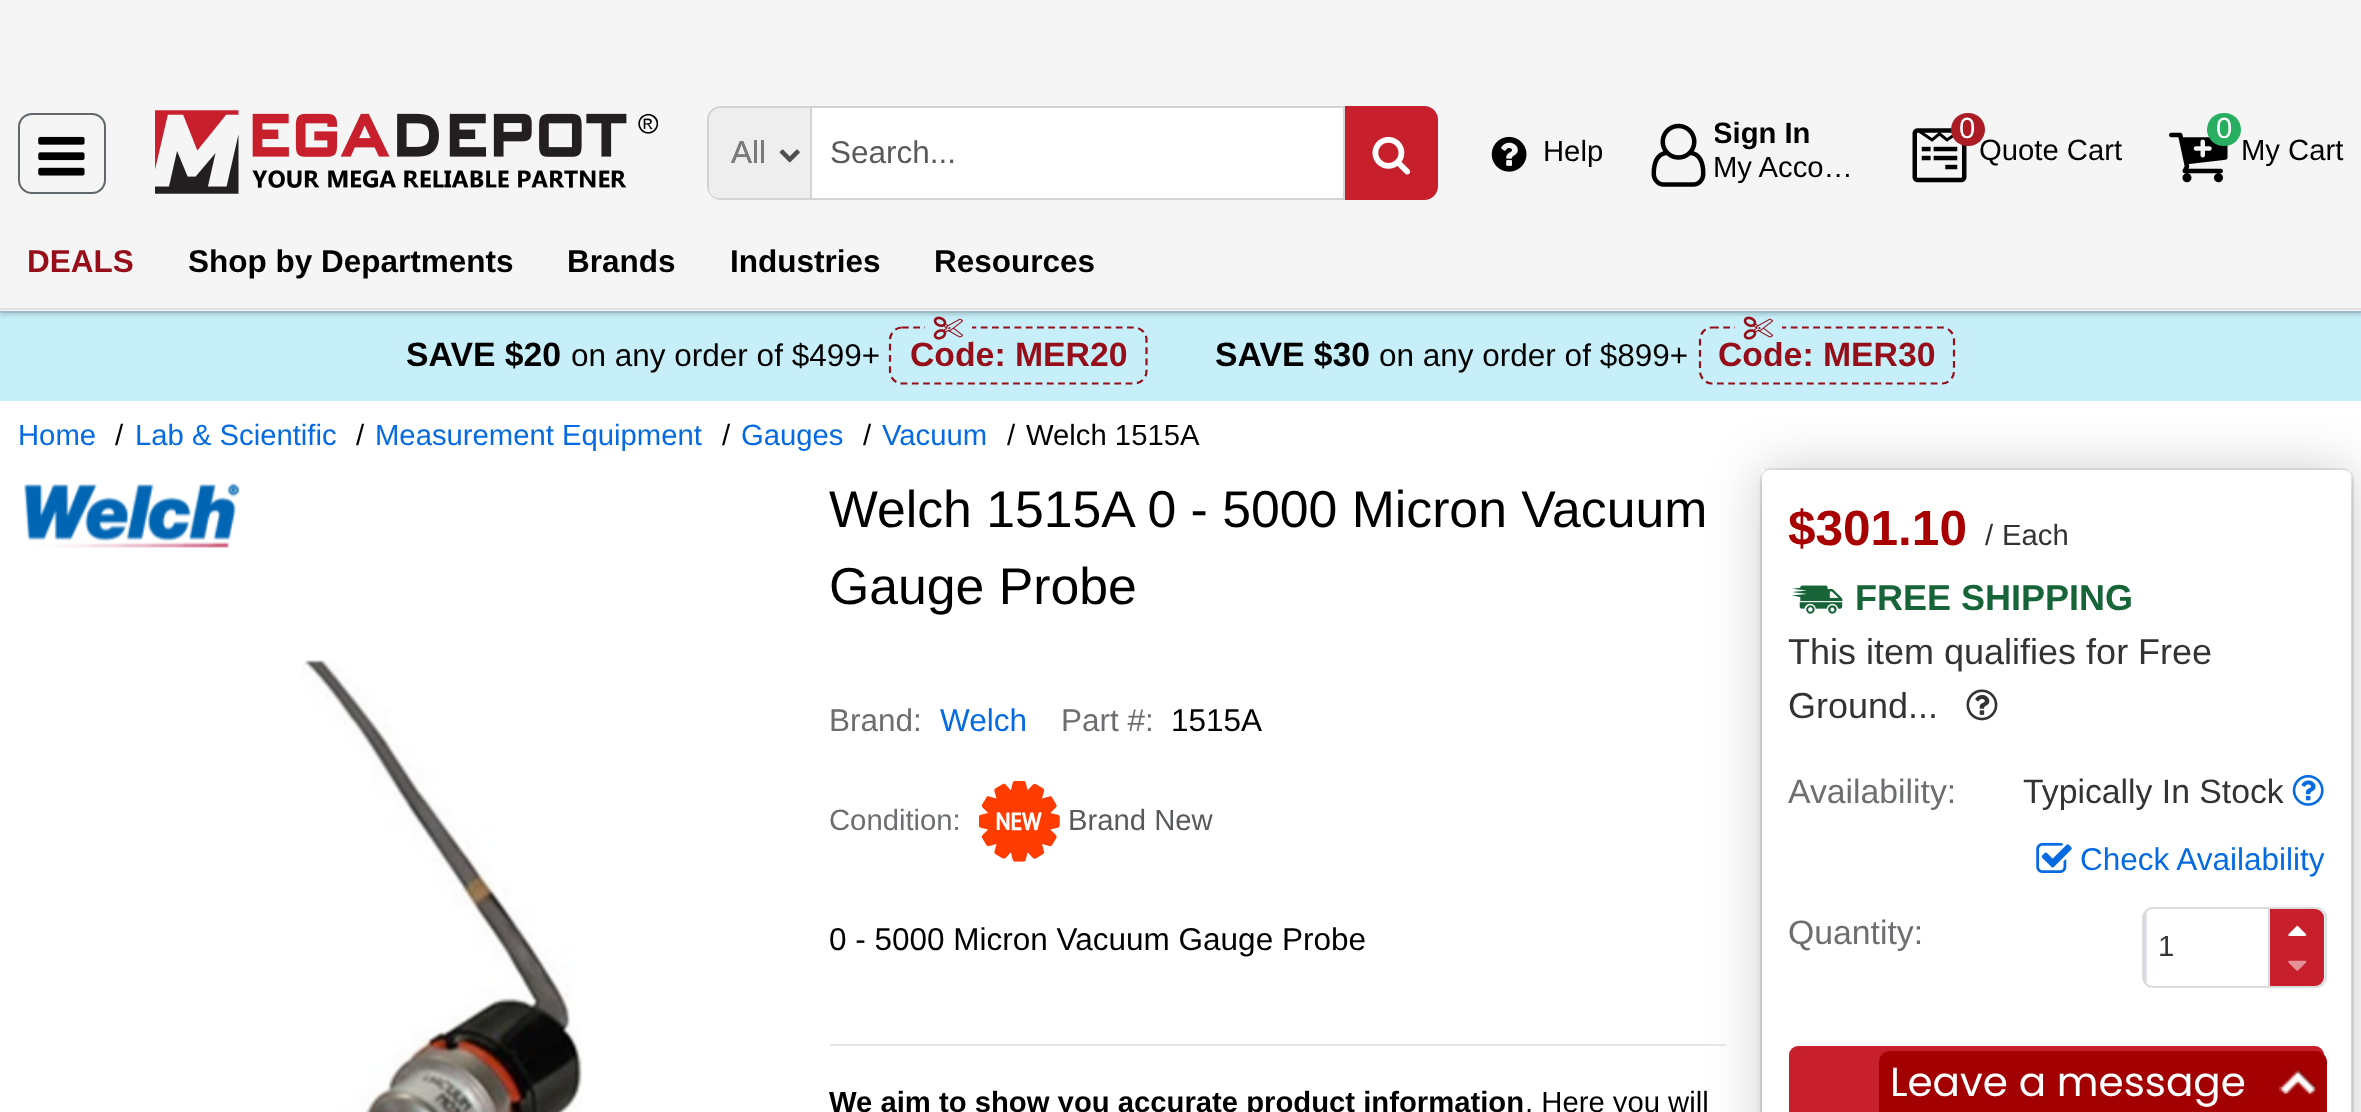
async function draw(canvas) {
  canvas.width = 2361
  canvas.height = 1112
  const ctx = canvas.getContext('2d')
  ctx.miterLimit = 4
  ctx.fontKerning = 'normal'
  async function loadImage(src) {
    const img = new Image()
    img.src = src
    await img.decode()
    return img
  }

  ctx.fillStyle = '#fff'
  ctx.fillRect(0, 0, 2361, 1112)
  ctx.fillStyle = '#f5f5f5'
  ctx.fillRect(0, 225, 2361, 86)
  ctx.save()
  ctx.beginPath()
  ctx.rect(0, 90, 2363, 311)
  ctx.clip()
  ctx.strokeStyle = '#e1e1e1'
  ctx.lineWidth = 2
  ctx.strokeRect(-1, 309, 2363, 93)
  ctx.restore()
  ctx.fillStyle = '#c7eff9'
  ctx.fillRect(0, 311, 2361, 90)
  ctx.strokeStyle = '#00000014'
  ctx.lineWidth = 2
  ctx.strokeRect(-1, 213, 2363, 99)
  ctx.beginPath()
  ctx.moveTo(902, 327.5)
  ctx.lineTo(1134, 327.5)
  ctx.bezierCurveTo(1141, 327.5, 1146.5, 333, 1146.5, 340)
  ctx.lineTo(1146.5, 371)
  ctx.bezierCurveTo(1146.5, 378, 1141, 383.5, 1134, 383.5)
  ctx.lineTo(902, 383.5)
  ctx.bezierCurveTo(895.5, 383.5, 890, 378, 890, 371)
  ctx.lineTo(890, 340)
  ctx.bezierCurveTo(890, 333, 895.5, 327.5, 902, 327.5)
  ctx.closePath()
  ctx.strokeStyle = '#950e19'
  ctx.lineWidth = 2.2
  ctx.setLineDash([6.75, 4.5])
  ctx.stroke()
  ctx.font = 'bold 33.75px Liberation Sans'
  ctx.fillStyle = '#950e19'
  ctx.fillText('Code: MER20', 910, 366)
  ctx.fillStyle = '#c7eff9'
  ctx.fillRect(925, 326, 47, 16)
  ctx.drawImage(await loadImage('image8.png'), 933, 316, 30, 24)
  ctx.beginPath()
  ctx.moveTo(1712, 327.5)
  ctx.lineTo(1942, 327.5)
  ctx.bezierCurveTo(1948.5, 327.5, 1954, 333, 1954, 340)
  ctx.lineTo(1954, 371)
  ctx.bezierCurveTo(1954, 378, 1948.5, 383.5, 1942, 383.5)
  ctx.lineTo(1712, 383.5)
  ctx.bezierCurveTo(1705.5, 383.5, 1700, 378, 1700, 371)
  ctx.lineTo(1700, 340)
  ctx.bezierCurveTo(1700, 333, 1705.5, 327.5, 1712, 327.5)
  ctx.closePath()
  ctx.stroke()
  ctx.fillStyle = '#950e19'
  ctx.fillText('Code: MER30', 1718, 366)
  ctx.fillStyle = '#c7eff9'
  ctx.fillRect(1735, 326, 47, 16)
  ctx.drawImage(await loadImage('image8.png'), 1743, 316, 30, 24)
  ctx.save()
  ctx.beginPath()
  ctx.moveTo(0, 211)
  ctx.lineTo(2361, 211)
  ctx.lineTo(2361, 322)
  ctx.lineTo(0, 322)
  ctx.closePath()
  ctx.moveTo(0, 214)
  ctx.lineTo(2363, 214)
  ctx.lineTo(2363, 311)
  ctx.lineTo(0, 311)
  ctx.closePath()
  ctx.clip('evenodd')
  ctx.fillStyle = '#00000029'
  ctx.filter = 'blur(2px)'
  ctx.beginPath()
  ctx.rect(0, 218, 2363, 97)
  ctx.fill()
  ctx.filter = 'none'
  ctx.restore()
  ctx.fillStyle = '#f5f5f5'
  ctx.fillRect(0, 0, 2361, 225)
  ctx.beginPath()
  ctx.roundRect(19, 114, 86, 79, 13)
  ctx.strokeStyle = '#60686b'
  ctx.lineWidth = 2
  ctx.setLineDash([])
  ctx.stroke()
  ctx.drawImage(await loadImage('image0.png'), 38, 136, 47, 40)
  ctx.drawImage(await loadImage('image1.png'), 155, 110, 504, 84)
  ctx.beginPath()
  ctx.roundRect(708, 107, 729, 92, 13)
  ctx.strokeStyle = '#d1d3d4'
  ctx.stroke()
  ctx.fillStyle = '#eee'
  ctx.beginPath()
  ctx.roundRect(709, 108, 103, 90, [14, 0, 0, 9])
  ctx.fill()
  ctx.fillStyle = '#d1d3d4'
  ctx.fillRect(810, 108, 2, 90)
  ctx.font = '31.5px Liberation Sans'
  ctx.fillStyle = '#4f4f4f'
  ctx.fillText('All', 731, 163)
  ctx.drawImage(await loadImage('image2.png'), 779, 149, 21, 14)
  ctx.fillStyle = '#c7202c'
  ctx.beginPath()
  ctx.roundRect(1343, 106, 95, 94, [0, 14, 14, 0])
  ctx.fill()
  ctx.fillStyle = '#d1d3d4'
  ctx.fillRect(1343, 106, 2, 94)
  ctx.drawImage(await loadImage('image3.png'), 1372, 136, 39, 39)
  ctx.fillStyle = '#7c7c7c'
  ctx.fillText('All', 731, 163)
  ctx.fillStyle = '#fff'
  ctx.fillRect(812, 108, 531, 90)
  ctx.fillStyle = '#58595b'
  ctx.fillText('Search...', 830, 163)
  ctx.drawImage(await loadImage('image4.png'), 1491, 136, 36, 36)
  ctx.font = '29.25px Liberation Sans'
  ctx.fillStyle = '#000'
  ctx.fillText('Help', 1543, 161)
  ctx.drawImage(await loadImage('image5.png'), 1651, 123, 55, 64)
  ctx.save()
  ctx.beginPath()
  ctx.rect(1715, 117, 150, 68)
  ctx.clip()
  ctx.font = 'bold 29.25px Liberation Sans'
  ctx.fillText('Sign In', 1713, 143)
  ctx.restore()
  ctx.fillText('My Acco…', 1713, 177)
  ctx.drawImage(await loadImage('image6.png'), 1912, 128, 55, 55)
  ctx.fillText('Quote Cart', 1979, 160)
  ctx.fillStyle = '#ab1c25'
  ctx.beginPath()
  ctx.roundRect(1951, 113, 34, 33, 16.5)
  ctx.fill()
  ctx.fillStyle = '#fff'
  ctx.fillText('0', 1959, 138)
  ctx.drawImage(await loadImage('image7.png'), 2169, 132, 59, 51)
  ctx.fillStyle = '#27ae60'
  ctx.beginPath()
  ctx.roundRect(2207, 113, 34, 33, 16.5)
  ctx.fill()
  ctx.fillStyle = '#fff'
  ctx.fillText('0', 2216, 138)
  ctx.fillStyle = '#000'
  ctx.fillText('My Cart', 2241, 160)
  ctx.font = 'bold 31.5px Liberation Sans'
  ctx.fillStyle = '#950e19'
  ctx.fillText('DEALS', 27, 272)
  ctx.fillStyle = '#000'
  ctx.fillText('Shop by Departments', 188, 272)
  ctx.fillText('Brands', 567, 272)
  ctx.fillText('Industries', 730, 272)
  ctx.fillText('Resources', 934, 272)
  ctx.font = 'bold 33.75px Liberation Sans'
  ctx.fillText('SAVE $20', 406, 366)
  ctx.font = '31.5px Liberation Sans'
  ctx.fillText('on any order of $499+', 571, 366)
  ctx.font = 'bold 33.75px Liberation Sans'
  ctx.fillText('SAVE $30', 1215, 366)
  ctx.font = '31.5px Liberation Sans'
  ctx.fillText('on any order of $899+', 1379, 366)
  ctx.font = '29.25px Liberation Sans'
  ctx.fillStyle = '#066be0'
  ctx.fillText('Home', 18, 445)
  ctx.fillStyle = '#000'
  ctx.fillText('/', 115, 445)
  ctx.fillStyle = '#066be0'
  ctx.fillText('Lab & Scientific', 135, 445)
  ctx.fillStyle = '#000'
  ctx.fillText('/', 356, 445)
  ctx.fillStyle = '#066be0'
  ctx.fillText('Measurement Equipment', 375, 445)
  ctx.fillStyle = '#000'
  ctx.fillText('/', 722, 445)
  ctx.fillStyle = '#066be0'
  ctx.fillText('Gauges', 741, 445)
  ctx.fillStyle = '#000'
  ctx.fillText('/', 863, 445)
  ctx.fillStyle = '#066be0'
  ctx.fillText('Vacuum', 882, 445)
  ctx.fillStyle = '#000'
  ctx.fillText('/', 1007, 445)
  ctx.fillText('Welch 1515A', 1026, 445)
  ctx.drawImage(await loadImage('image9.png'), 24, 483, 216, 65)
  ctx.drawImage(await loadImage('image10.png'), 302, 660, 281, 452)
  ctx.save()
  ctx.beginPath()
  ctx.moveTo(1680, 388)
  ctx.lineTo(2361, 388)
  ctx.lineTo(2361, 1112)
  ctx.lineTo(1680, 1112)
  ctx.closePath()
  ctx.moveTo(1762, 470)
  ctx.lineTo(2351, 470)
  ctx.lineTo(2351, 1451)
  ctx.lineTo(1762, 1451)
  ctx.closePath()
  ctx.clip('evenodd')
  ctx.fillStyle = '#00000033'
  ctx.filter = 'blur(27px)'
  ctx.beginPath()
  ctx.rect(1762, 470, 589, 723)
  ctx.fill()
  ctx.filter = 'none'
  ctx.restore()
  ctx.font = '51.75px Liberation Sans'
  ctx.fillText('Welch 1515A 0 - 5000 Micron Vacuum', 829, 527)
  ctx.fillText('Gauge Probe', 829, 604)
  ctx.font = '31.5px Liberation Sans'
  ctx.fillStyle = '#6d6e71'
  ctx.fillText('Brand:', 829, 731)
  ctx.fillStyle = '#066be0'
  ctx.fillText('Welch', 940, 731)
  ctx.fillStyle = '#6d6e71'
  ctx.fillText('Part #:', 1061, 731)
  ctx.fillStyle = '#000'
  ctx.fillText('1515A', 1171, 731)
  ctx.font = '29.25px Liberation Sans'
  ctx.fillStyle = '#6d6e71'
  ctx.fillText('Condition:', 829, 830)
  ctx.drawImage(await loadImage('image11.png'), 979, 781, 81, 81)
  ctx.fillStyle = '#58595b'
  ctx.fillText('Brand New', 1068, 830)
  ctx.beginPath()
  ctx.roundRect(1761, 469, 592, 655, 10)
  ctx.strokeStyle = '#00000014'
  ctx.stroke()
  ctx.save()
  ctx.beginPath()
  ctx.moveTo(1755, 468)
  ctx.lineTo(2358, 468)
  ctx.lineTo(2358, 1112)
  ctx.lineTo(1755, 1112)
  ctx.closePath()
  ctx.moveTo(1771, 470)
  ctx.lineTo(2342, 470)
  ctx.bezierCurveTo(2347, 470, 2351, 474, 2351, 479)
  ctx.lineTo(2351, 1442)
  ctx.bezierCurveTo(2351, 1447, 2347, 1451, 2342, 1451)
  ctx.lineTo(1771, 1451)
  ctx.bezierCurveTo(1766, 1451, 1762, 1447, 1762, 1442)
  ctx.lineTo(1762, 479)
  ctx.bezierCurveTo(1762, 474, 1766, 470, 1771, 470)
  ctx.closePath()
  ctx.clip('evenodd')
  ctx.fillStyle = '#00000029'
  ctx.filter = 'blur(2px)'
  ctx.beginPath()
  ctx.roundRect(1762, 475, 589, 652, 9)
  ctx.fill()
  ctx.filter = 'none'
  ctx.restore()
  ctx.font = 'bold 49.5px Liberation Sans'
  ctx.fillStyle = '#a80000'
  ctx.fillText('$301.10', 1788, 545)
  ctx.font = '29.25px Liberation Sans'
  ctx.fillStyle = '#333'
  ctx.fillText('/', 1985, 545)
  ctx.fillText('Each', 2002, 545)
  ctx.drawImage(await loadImage('image12.png'), 1792, 585, 51, 29)
  ctx.font = 'bold 36px Liberation Sans'
  ctx.fillStyle = '#166438'
  ctx.fillText('FREE SHIPPING', 1855, 610)
  ctx.font = '36px Liberation Sans'
  ctx.fillStyle = '#333'
  ctx.fillText('This item qualifies for Free', 1788, 664)
  ctx.fillText('Ground...', 1788, 718)
  ctx.drawImage(await loadImage('image13.png'), 1966, 689, 32, 32)
  ctx.font = '33.75px Liberation Sans'
  ctx.fillStyle = '#6d6e71'
  ctx.fillText('Availability:', 1788, 803)
  ctx.fillStyle = '#333'
  ctx.fillText('Typically In Stock', 2023, 803)
  ctx.drawImage(await loadImage('image14.png'), 2292, 775, 32, 31)
  ctx.drawImage(await loadImage('image15.png'), 2036, 842, 36, 31)
  ctx.font = '31.5px Liberation Sans'
  ctx.fillStyle = '#066be0'
  ctx.fillText('Check Availability', 2080, 870)
  ctx.font = '33.75px Liberation Sans'
  ctx.fillStyle = '#6d6e71'
  ctx.fillText('Quantity:', 1788, 944)
  ctx.beginPath()
  ctx.roundRect(2143, 908, 183, 79, 10)
  ctx.strokeStyle = '#e0e0e0'
  ctx.stroke()
  ctx.fillStyle = '#0000001a'
  ctx.filter = 'blur(1px)'
  ctx.beginPath()
  ctx.roundRect(2144, 909, 180, 77, 9)
  ctx.fill()
  ctx.filter = 'none'
  ctx.save()
  ctx.beginPath()
  ctx.roundRect(2144, 909, 180, 77, 9)
  ctx.clip()
  ctx.fillStyle = '#fff'
  ctx.fillRect(2147, 909, 121, 77)
  ctx.restore()
  ctx.fillStyle = '#d8dce4'
  ctx.fillRect(2268, 909, 2, 77)
  ctx.save()
  ctx.beginPath()
  ctx.roundRect(2144, 909, 180, 77, 9)
  ctx.clip()
  ctx.fillRect(2144, 909, 2, 77)
  ctx.restore()
  ctx.font = '29.25px Liberation Sans'
  ctx.fillStyle = '#333'
  ctx.fillText('1', 2158, 956)
  ctx.fillStyle = '#c7202c'
  ctx.beginPath()
  ctx.roundRect(2271, 910, 52, 75, [0, 8, 8, 0])
  ctx.fill()
  ctx.strokeStyle = '#c7202c'
  ctx.stroke()
  ctx.drawImage(await loadImage('image16.png'), 2288, 925, 19, 11)
  ctx.drawImage(await loadImage('image17.png'), 2288, 960, 19, 11)
  ctx.beginPath()
  ctx.roundRect(1789, 1046, 535, 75, 9)
  ctx.fill()
  ctx.fillStyle = '#e5e5e5'
  ctx.fillRect(830, 1044, 896, 2)
  ctx.font = '31.5px Liberation Sans'
  ctx.fillStyle = '#000'
  ctx.fillText('0 - 5000 Micron Vacuum Gauge Probe', 829, 950)
  ctx.font = 'bold 29.25px Liberation Sans'
  ctx.fillText('We aim to show you accurate product information', 829, 1112)
  ctx.font = '29.25px Liberation Sans'
  ctx.fillText('. Here you will', 1525, 1112)
  ctx.fillStyle = '#a30101'
  ctx.beginPath()
  ctx.moveTo(1890, 1051)
  ctx.lineTo(2316, 1051)
  ctx.bezierCurveTo(2322, 1051, 2327, 1056, 2327, 1062)
  ctx.lineTo(2327, 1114)
  ctx.lineTo(1879, 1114)
  ctx.lineTo(1879, 1062)
  ctx.bezierCurveTo(1879, 1056, 1884, 1051, 1890, 1051)
  ctx.closePath()
  ctx.fill()
  ctx.font = '40.5px Poppins'
  ctx.fillStyle = '#fff'
  ctx.fillText('Leave a message', 1890, 1096)
  ctx.drawImage(await loadImage('image18.png'), 2279, 1069, 37, 26)
}

draw(document.querySelector('canvas'))
